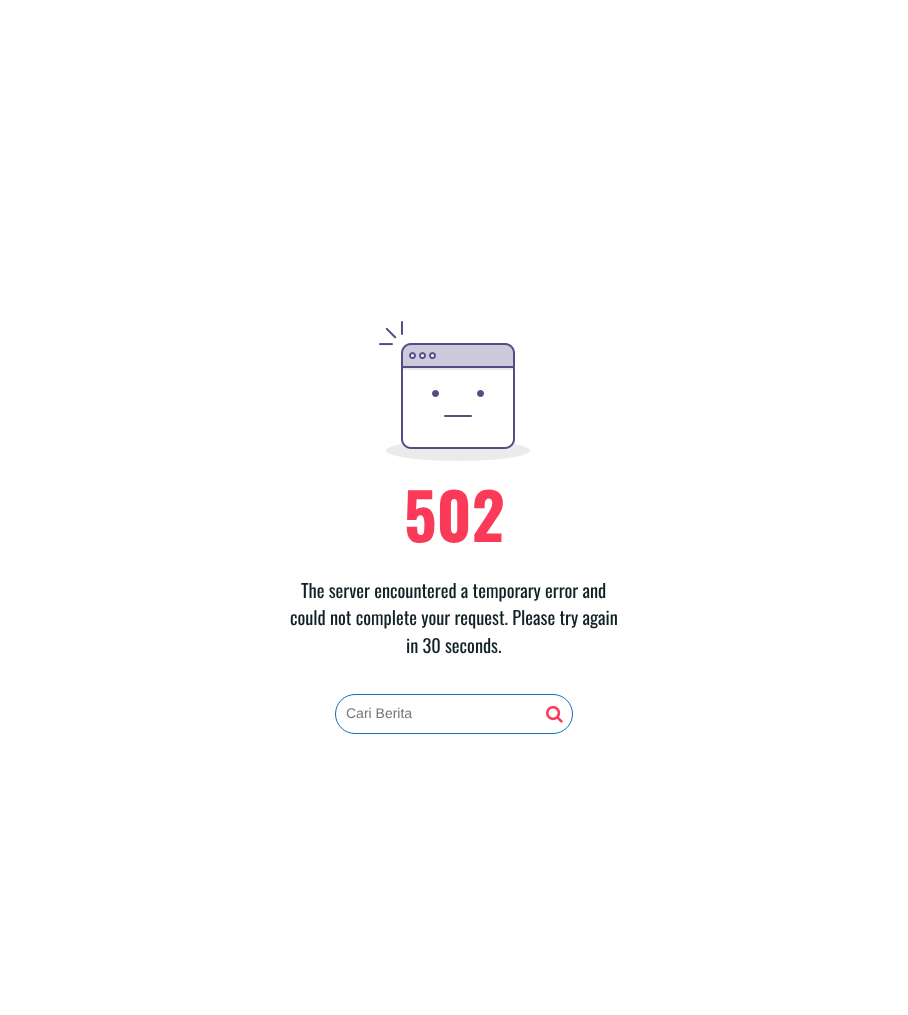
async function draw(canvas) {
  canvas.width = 908
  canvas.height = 1015
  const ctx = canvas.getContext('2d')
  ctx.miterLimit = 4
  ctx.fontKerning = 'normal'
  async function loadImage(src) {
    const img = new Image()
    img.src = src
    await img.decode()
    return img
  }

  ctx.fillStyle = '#fff'
  ctx.fillRect(0, 0, 908, 1015)
  ctx.drawImage(await loadImage('image0.png'), 379, 321, 151, 140)
  ctx.font = 'bold 64px Oswald'
  ctx.fillStyle = '#fb3958'
  ctx.fillText('502', 404, 542)
  ctx.font = '18.4px Oswald'
  ctx.fillStyle = '#122125'
  ctx.fillText('The server encountered a temporary error and', 301, 598)
  ctx.fillText('could not complete your request. Please try again', 290, 625)
  ctx.fillText('in 30 seconds.', 406, 653)
  ctx.beginPath()
  ctx.roundRect(335.5, 694.5, 237, 39, 19.5)
  ctx.strokeStyle = '#106fba'
  ctx.stroke()
  ctx.font = '14px Liberation Sans'
  ctx.fillStyle = '#757575'
  ctx.fillText('Cari Berita', 346, 718)
  ctx.drawImage(await loadImage('image1.png'), 546, 705, 17, 18)
}

draw(document.querySelector('canvas'))
